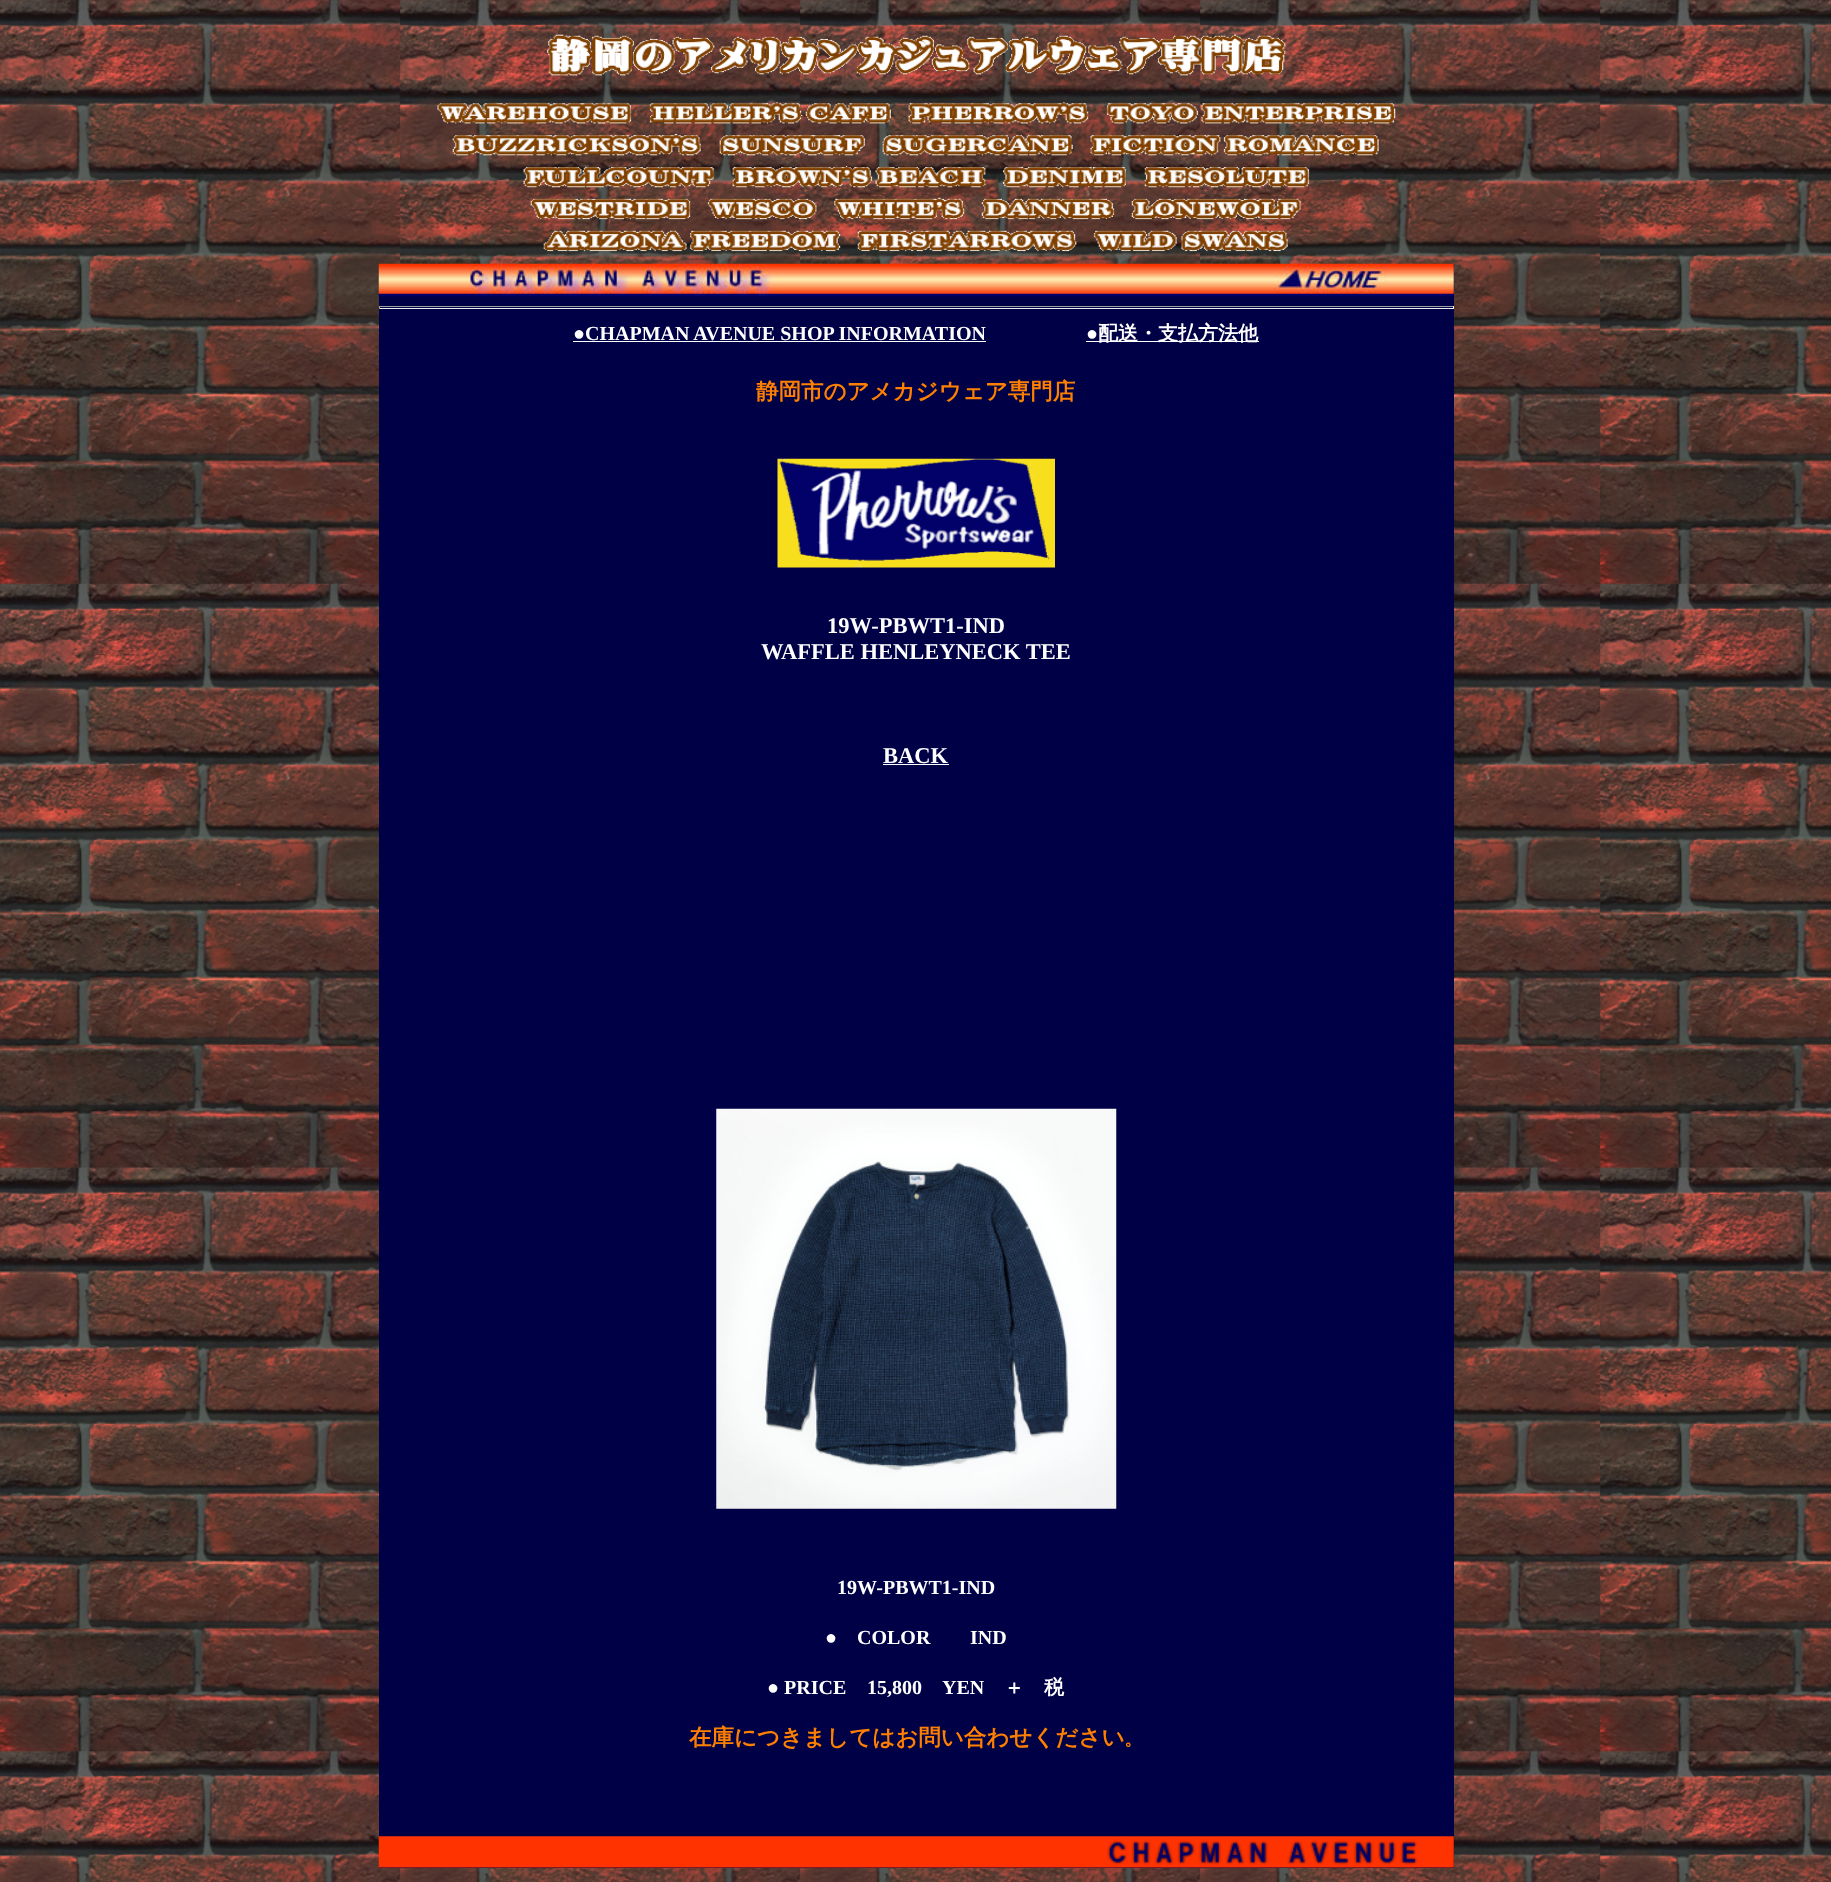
async function draw(canvas) {
  canvas.width = 1831
  canvas.height = 1882
  const ctx = canvas.getContext('2d')
  ctx.miterLimit = 4
  ctx.fontKerning = 'normal'
  async function loadImage(src) {
    const img = new Image()
    img.src = src
    await img.decode()
    return img
  }

  ctx.fillStyle = '#fff'
  ctx.fillRect(0, 0, 1831, 1882)
  ctx.drawImage(await loadImage('image0.png'), 0, 0, 1831, 1882)
  ctx.drawImage(await loadImage('image1.png'), 547, 34, 739, 42)
  ctx.drawImage(await loadImage('image2.png'), 437, 102, 959, 150)
  ctx.fillStyle = '#000047'
  ctx.fillRect(379, 264, 1075, 1604)
  ctx.drawImage(await loadImage('image3.png'), 378, 263, 1076, 34)
  ctx.fillStyle = '#9f9f9f'
  ctx.fillRect(379, 306, 1075, 1)
  ctx.fillStyle = '#eee'
  ctx.fillRect(1453, 306, 1, 3)
  ctx.fillRect(379, 308, 1075, 1)
  ctx.fillStyle = '#9f9f9f'
  ctx.fillRect(379, 306, 1, 3)
  ctx.font = '20px Liberation Serif'
  ctx.fillStyle = '#fff'
  ctx.fillText('●', 573, 340)
  ctx.fillRect(573, 341, 413, 1)
  ctx.font = 'bold 20px Liberation Serif'
  ctx.fillText('CHAPMAN AVENUE SHOP INFORMATION', 585, 340)
  ctx.fillText('●', 1086, 340)
  ctx.fillRect(1086, 341, 173, 1)
  ctx.font = 'bold 20px WenQuanYi Zen Hei'
  ctx.fillText('配送・支払方法他', 1098, 340)
  ctx.font = 'bold 22.5px WenQuanYi Zen Hei'
  ctx.fillStyle = '#ff8000'
  ctx.fillText('静岡市のアメカジウェア専門店', 756, 399)
  ctx.drawImage(await loadImage('image4.png'), 777, 458, 278, 110)
  ctx.font = 'bold 22.5px Liberation Serif'
  ctx.fillStyle = '#fff'
  ctx.fillText('19W-PBWT1-IND', 827, 633)
  ctx.fillText('WAFFLE HENLEYNECK TEE', 761, 659)
  ctx.fillText('BACK', 883, 763)
  ctx.fillRect(883, 764, 66, 1)
  ctx.drawImage(await loadImage('image5.png'), 716, 1108, 401, 401)
  ctx.font = 'bold 20px Liberation Serif'
  ctx.fillText('19W-PBWT1-IND', 837, 1594)
  ctx.fillText('●', 825, 1644)
  ctx.fillText('COLOR', 857, 1644)
  ctx.fillText('IND', 970, 1644)
  ctx.fillText('● PRICE', 767, 1694)
  ctx.fillText('15,800', 867, 1694)
  ctx.fillText('YEN', 942, 1694)
  ctx.font = 'bold 20px WenQuanYi Zen Hei'
  ctx.fillText('＋　税', 1004, 1694)
  ctx.font = 'bold 22.5px WenQuanYi Zen Hei'
  ctx.fillStyle = '#ff8000'
  ctx.fillText('在庫につきましてはお問い合わせください', 689, 1745)
  ctx.font = 'bold 19px WenQuanYi Zen Hei'
  ctx.fillText('。', 1124, 1745)
  ctx.drawImage(await loadImage('image6.png'), 378, 1836, 1076, 32)
}

draw(document.querySelector('canvas'))
